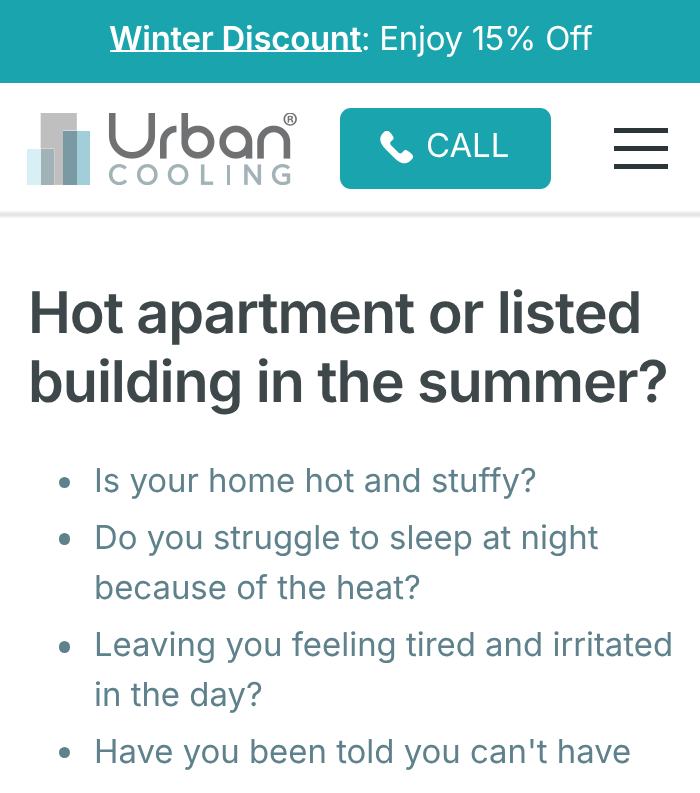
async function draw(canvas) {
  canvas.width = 700
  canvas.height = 793
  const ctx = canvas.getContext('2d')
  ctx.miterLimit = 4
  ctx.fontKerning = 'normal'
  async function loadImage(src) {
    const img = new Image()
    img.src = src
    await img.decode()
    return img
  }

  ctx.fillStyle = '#fff'
  ctx.fillRect(0, 0, 700, 793)
  ctx.fillStyle = '#1aa4ad'
  ctx.fillRect(0, 0, 700, 83)
  ctx.fillStyle = '#fff'
  ctx.fillRect(110, 50, 252, 2)
  ctx.letterSpacing = '-0.25px'
  ctx.font = '600 32.9px Inter'
  ctx.fillText('Winter Discount', 109, 50)
  ctx.font = '32.9px Inter'
  ctx.fillText(': Enjoy 15% Off', 361, 50)
  ctx.drawImage(await loadImage('image0.png'), 27, 113, 270, 72)
  ctx.fillStyle = '#1aa4ad'
  ctx.beginPath()
  ctx.roundRect(342.5, 110.5, 206, 76, 8.5)
  ctx.fill()
  ctx.strokeStyle = '#1aa4ad'
  ctx.lineWidth = 5
  ctx.stroke()
  ctx.drawImage(await loadImage('image1.png'), 380, 131, 34, 33)
  ctx.letterSpacing = '0px'
  ctx.fillStyle = '#fff'
  ctx.fillText('CALL', 426, 157)
  ctx.fillStyle = '#2c3537'
  ctx.fillRect(614, 128, 54, 5)
  ctx.fillRect(614, 146, 54, 5)
  ctx.fillRect(614, 164, 54, 5)
  ctx.fillStyle = '#0000001a'
  ctx.filter = 'blur(1px)'
  ctx.beginPath()
  ctx.rect(-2, 212, 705, 5)
  ctx.fill()
  ctx.filter = 'none'
  ctx.letterSpacing = '-1.1px'
  ctx.font = '600 57.5px Inter'
  ctx.fillStyle = '#3e4749'
  ctx.fillText('Hot apartment or listed', 28, 333)
  ctx.fillText('building in the summer?', 28, 402)
  ctx.fillStyle = '#5e818b'
  ctx.beginPath()
  ctx.arc(64.5, 482.5, 5.5, 0, 2 * Math.PI)
  ctx.fill()
  ctx.letterSpacing = '0px'
  ctx.font = '32.9px Inter'
  ctx.fillText('Is your home hot and stuffy?', 94, 492)
  ctx.beginPath()
  ctx.roundRect(59, 533, 11, 12, 5.5)
  ctx.fill()
  ctx.fillText('Do you struggle to sleep at night', 94, 549)
  ctx.fillText('because of the heat?', 94, 599)
  ctx.beginPath()
  ctx.roundRect(59, 641, 11, 12, 5.5)
  ctx.fill()
  ctx.fillText('Leaving you feeling tired and irritated', 94, 656)
  ctx.fillText('in the day?', 94, 706)
  ctx.beginPath()
  ctx.arc(64.5, 752.5, 5.5, 0, 2 * Math.PI)
  ctx.fill()
  ctx.fillText('Have you been told you can\'t have', 94, 763)
}

draw(document.querySelector('canvas'))
